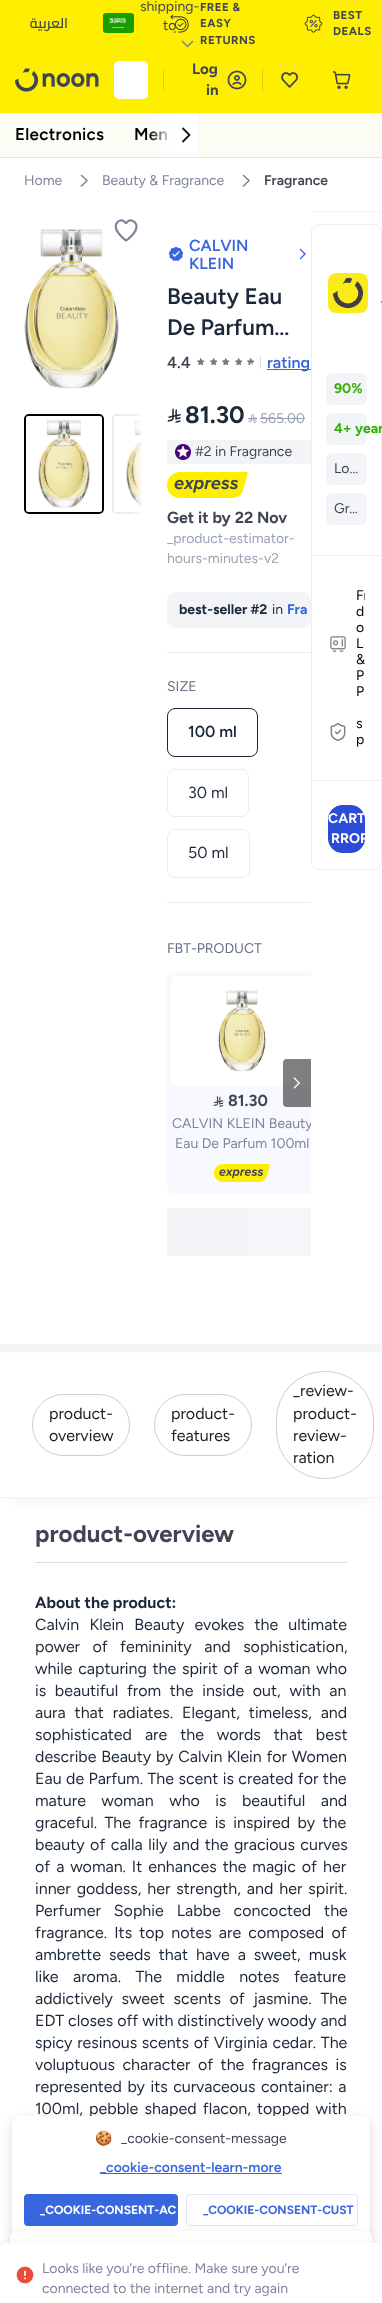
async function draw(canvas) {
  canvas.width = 382
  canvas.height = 2303
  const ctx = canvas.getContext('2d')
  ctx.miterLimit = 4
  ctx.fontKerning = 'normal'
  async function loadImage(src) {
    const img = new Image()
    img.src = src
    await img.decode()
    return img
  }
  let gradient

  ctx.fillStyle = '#fafafa'
  ctx.fillRect(0, 0, 382, 2303)
  ctx.fillStyle = '#feee00'
  ctx.fillRect(0, 0, 382, 113)
  ctx.direction = 'rtl'
  ctx.font = '600 14px Cairo'
  ctx.fillStyle = '#404553'
  ctx.fillText('العربية', 68, 28)
  ctx.drawImage(await loadImage('image0.png'), 103, 13, 31, 20)
  ctx.direction = 'ltr'
  ctx.font = '14px Figtree'
  ctx.fillText('shipping-', 140, 11)
  ctx.drawImage(await loadImage('image1.png'), 170, 14, 19, 19)
  ctx.fillText('to', 163, 30)
  ctx.beginPath()
  ctx.moveTo(193, 41)
  ctx.lineTo(187.5, 46.5)
  ctx.lineTo(182, 41)
  ctx.strokeStyle = '#7e859b'
  ctx.lineWidth = 1.5
  ctx.stroke()
  ctx.letterSpacing = '0.5px'
  ctx.font = 'bold 11.5px Figtree'
  ctx.fillText('FREE &', 200, 11)
  ctx.fillText('EASY', 200, 27)
  ctx.fillText('RETURNS', 200, 44)
  ctx.drawImage(await loadImage('image2.png'), 304, 14, 19, 19)
  ctx.fillText('BEST', 333, 19)
  ctx.fillText('DEALS', 333, 35)
  ctx.drawImage(await loadImage('image3.png'), 15, 68, 84, 24)
  ctx.fillStyle = '#fff'
  ctx.beginPath()
  ctx.roundRect(114, 61, 34, 38, 5)
  ctx.fill()
  ctx.fillStyle = '#d8cc11'
  ctx.fillRect(163, 69, 1, 22)
  ctx.letterSpacing = '0px'
  ctx.font = 'bold 15px Figtree'
  ctx.fillStyle = '#404553'
  ctx.fillText('Log', 192, 74)
  ctx.fillText('in', 206, 95)
  ctx.drawImage(await loadImage('image4.png'), 227, 70, 20, 20)
  ctx.fillStyle = '#d8cc11'
  ctx.fillRect(262, 69, 1, 22)
  ctx.drawImage(await loadImage('image5.png'), 281, 72, 17, 16)
  ctx.drawImage(await loadImage('image6.png'), 332, 71, 19, 18)
  ctx.fillStyle = '#fcfbf4'
  ctx.fillRect(0, 113, 382, 44)
  ctx.fillStyle = '#e2e5f1'
  ctx.fillRect(0, 157, 382, 1)
  ctx.letterSpacing = '0.25px'
  ctx.font = '600 17px Figtree'
  ctx.fillStyle = '#000'
  ctx.fillText('Electronics', 15, 140)
  ctx.fillText('Men', 134, 140)
  gradient = ctx.createLinearGradient(148, 135, 198, 135)
  gradient.addColorStop(0, '#ffffff00')
  gradient.addColorStop(0.5, '#fff')
  gradient.addColorStop(1, '#fff')
  ctx.fillStyle = gradient
  ctx.fillRect(149, 113, 49, 44)
  ctx.beginPath()
  ctx.moveTo(182.5, 142)
  ctx.lineTo(189.5, 135)
  ctx.lineTo(182.5, 128)
  ctx.strokeStyle = '#131313'
  ctx.lineWidth = 1.8
  ctx.stroke()
  ctx.fillStyle = '#fff'
  ctx.fillRect(0, 158, 382, 1186)
  ctx.letterSpacing = '0px'
  ctx.font = '14px Figtree'
  ctx.fillStyle = '#7e859b'
  ctx.fillText('Home', 24, 185)
  ctx.beginPath()
  ctx.moveTo(81, 186.5)
  ctx.lineTo(87, 180.5)
  ctx.lineTo(81, 175)
  ctx.strokeStyle = '#838383'
  ctx.lineWidth = 1.5
  ctx.stroke()
  ctx.fillText('Beauty & Fragrance', 102, 185)
  ctx.beginPath()
  ctx.moveTo(243, 186.5)
  ctx.lineTo(249, 180.5)
  ctx.lineTo(243, 175)
  ctx.stroke()
  ctx.font = '600 14px Figtree'
  ctx.fillStyle = '#404553'
  ctx.fillText('Fragrance', 264, 185)
  ctx.drawImage(await loadImage('image7.png'), 24, 229, 95, 160)
  ctx.beginPath()
  ctx.moveTo(126, 224)
  ctx.bezierCurveTo(126, 223.5, 123, 217.5, 117.5, 222)
  ctx.bezierCurveTo(110.5, 229.5, 126, 240.5, 126, 240.5)
  ctx.bezierCurveTo(126.5, 240.5, 142, 229.5, 134.5, 222)
  ctx.bezierCurveTo(129, 217.5, 126, 223.5, 126, 224)
  ctx.closePath()
  ctx.strokeStyle = '#7e859b'
  ctx.lineWidth = 2.2
  ctx.stroke()
  ctx.beginPath()
  ctx.roundRect(25, 415, 78, 98, 4)
  ctx.strokeStyle = '#000'
  ctx.lineWidth = 2
  ctx.stroke()
  ctx.drawImage(await loadImage('image8.png'), 26, 416, 76, 96)
  ctx.drawImage(await loadImage('image14.png'), 167, 408, 14, 15)
  ctx.font = 'bold 24px Figtree'
  ctx.fillStyle = '#1d2939'
  ctx.fillText('81.30', 185, 423)
  ctx.fillStyle = '#f2f4f7'
  ctx.beginPath()
  ctx.roundRect(167, 440, 144, 24, [4, 0, 0, 4])
  ctx.fill()
  ctx.drawImage(await loadImage('image16.png'), 175, 444, 16, 16)
  ctx.drawImage(await loadImage('image17.png'), 167, 472, 81, 26)
  ctx.font = 'bold 16px Figtree'
  ctx.fillStyle = '#404553'
  ctx.fillText('Get it by 22 Nov', 167, 523)
  ctx.save()
  ctx.beginPath()
  ctx.rect(0, 414, 143, 100)
  ctx.clip()
  ctx.beginPath()
  ctx.roundRect(113, 415, 78, 98, 4)
  ctx.strokeStyle = '#ebecf0'
  ctx.stroke()
  ctx.restore()
  ctx.drawImage(await loadImage('image9.png'), 114, 416, 29, 96)
  ctx.fillStyle = '#404553bf'
  ctx.beginPath()
  ctx.roundRect(142, 454, 1, 20, [10, 0, 0, 10])
  ctx.fill()
  ctx.save()
  ctx.beginPath()
  ctx.rect(0, 414, 143, 100)
  ctx.clip()
  ctx.beginPath()
  ctx.arc(152, 464, 9.5, 0, 2 * Math.PI)
  ctx.strokeStyle = '#fff'
  ctx.lineWidth = 1
  ctx.stroke()
  ctx.restore()
  gradient = ctx.createLinearGradient(129, 464, 143, 464)
  gradient.addColorStop(0, '#ffffff00')
  gradient.addColorStop(0.59, '#ffffff8a')
  gradient.addColorStop(1, '#fff')
  ctx.fillStyle = gradient
  ctx.fillRect(129, 414, 14, 100)
  ctx.drawImage(await loadImage('image10.png'), 168, 246, 16, 15)
  ctx.font = '600 16px Figtree'
  ctx.fillStyle = '#3866df'
  ctx.fillText('CALVIN', 189, 251)
  ctx.fillText('KLEIN', 189, 269)
  ctx.beginPath()
  ctx.moveTo(300.5, 249.5)
  ctx.lineTo(305, 254)
  ctx.lineTo(300.5, 258.5)
  ctx.strokeStyle = '#3866df'
  ctx.lineWidth = 1.4
  ctx.lineCap = 'round'
  ctx.lineJoin = 'round'
  ctx.stroke()
  ctx.font = '600 22.5px Figtree'
  ctx.fillStyle = '#1d2939'
  ctx.fillText('Beauty Eau', 167, 304)
  ctx.fillText('De Parfum…', 167, 335)
  ctx.font = '600 16px Figtree'
  ctx.fillStyle = '#404553'
  ctx.fillText('4.4', 167, 368)
  ctx.drawImage(await loadImage('image11.png'), 197, 358, 8, 7)
  ctx.drawImage(await loadImage('image12.png'), 210, 358, 7, 7)
  ctx.drawImage(await loadImage('image11.png'), 222, 358, 8, 7)
  ctx.drawImage(await loadImage('image12.png'), 235, 358, 7, 7)
  ctx.drawImage(await loadImage('image12.png'), 247, 358, 7, 7)
  ctx.drawImage(await loadImage('image13.png'), 250, 363, 4, 2)
  ctx.fillStyle = '#dadce3'
  ctx.fillRect(260, 356, 1, 13)
  ctx.fillStyle = '#3866df'
  ctx.fillRect(267, 369, 44, 1)
  ctx.fillText('rating', 267, 368)
  ctx.drawImage(await loadImage('image15.png'), 248, 414, 9, 9)
  ctx.fillStyle = '#98a2b3'
  ctx.fillRect(248, 418, 9, 1)
  ctx.font = '14px Figtree'
  ctx.fillText('565.00', 260, 423)
  ctx.fillRect(260, 418, 45, 1)
  ctx.fillStyle = '#404553'
  ctx.fillText('#2 in Fragrance', 195, 456)
  ctx.fillStyle = '#98a2b3'
  ctx.fillText('_product-estimator-', 167, 543)
  ctx.fillText('hours-minutes-v2', 167, 563)
  ctx.fillStyle = '#f2f4f7'
  ctx.beginPath()
  ctx.roundRect(167, 592, 144, 36, 8)
  ctx.fill()
  ctx.font = 'bold 14px Figtree'
  ctx.fillStyle = '#1d2939'
  ctx.fillText('best-seller #2', 179, 614)
  ctx.font = '14px Figtree'
  ctx.fillText('in', 272, 614)
  ctx.font = 'bold 14px Figtree'
  ctx.fillStyle = '#3866df'
  ctx.fillText('Fra', 287, 614)
  ctx.fillStyle = '#eaecf0'
  ctx.fillRect(167, 652, 144, 1)
  ctx.font = '14px Figtree'
  ctx.fillStyle = '#667085'
  ctx.fillText('SIZE', 167, 691)
  ctx.beginPath()
  ctx.roundRect(167.5, 708.5, 90, 48, 7.5)
  ctx.strokeStyle = '#1d2939'
  ctx.lineWidth = 1
  ctx.lineJoin = 'miter'
  ctx.stroke()
  ctx.font = '600 16px Figtree'
  ctx.fillStyle = '#1d2939'
  ctx.fillText('100 ml', 188, 737)
  ctx.beginPath()
  ctx.roundRect(167.5, 769.5, 81, 47, 7.5)
  ctx.strokeStyle = '#eaecf0'
  ctx.stroke()
  ctx.font = '16px Figtree'
  ctx.fillText('30 ml', 188, 798)
  ctx.beginPath()
  ctx.roundRect(167.5, 829.5, 82, 48, 7.5)
  ctx.stroke()
  ctx.fillText('50 ml', 188, 858)
  ctx.fillStyle = '#eaecf0'
  ctx.fillRect(167, 902, 144, 1)
  ctx.font = '14px Figtree'
  ctx.fillStyle = '#667085'
  ctx.fillText('FBT-PRODUCT', 167, 953)
  ctx.save()
  ctx.beginPath()
  ctx.rect(167, 972, 144, 222)
  ctx.clip()
  ctx.fillStyle = '#f7f9fe'
  ctx.beginPath()
  ctx.roundRect(167, 972, 150, 222, 8)
  ctx.fill()
  ctx.fillStyle = '#fff'
  ctx.beginPath()
  ctx.roundRect(171, 976, 142, 110, 5)
  ctx.fill()
  ctx.restore()
  ctx.fillStyle = '#00000080'
  ctx.beginPath()
  ctx.roundRect(283, 1059, 28, 48, [4, 0, 0, 4])
  ctx.fill()
  ctx.drawImage(await loadImage('image18.png'), 293, 1077, 7, 12)
  ctx.drawImage(await loadImage('image19.png'), 218, 990, 48, 82)
  ctx.drawImage(await loadImage('image20.png'), 213, 1096, 11, 11)
  ctx.font = 'bold 16px Figtree'
  ctx.fillStyle = '#404553'
  ctx.fillText('81.30', 228, 1106)
  ctx.save()
  ctx.beginPath()
  ctx.rect(171, 1114, 140, 40)
  ctx.clip()
  ctx.font = '14px Figtree'
  ctx.fillStyle = '#7e859b'
  ctx.fillText('CALVIN KLEIN Beauty', 172, 1128)
  ctx.restore()
  ctx.font = '14px Figtree'
  ctx.fillStyle = '#7e859b'
  ctx.fillText('Eau De Parfum 100ml', 175, 1148)
  ctx.drawImage(await loadImage('image21.png'), 214, 1164, 56, 18)
  gradient = ctx.createLinearGradient(167, 1232, 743, 1232)
  gradient.addColorStop(0, '#f3f4f8')
  gradient.addColorStop(0.2, '#f5f6f9')
  gradient.addColorStop(0.6, '#fbfcfd')
  gradient.addColorStop(1, '#f3f4f8')
  ctx.fillStyle = gradient
  ctx.fillRect(167, 1208, 144, 48)
  ctx.fillStyle = '#f3f4f8'
  ctx.fillRect(311, 211, 71, 1)
  ctx.beginPath()
  ctx.roundRect(311.5, 224.5, 70, 645, 7.5)
  ctx.strokeStyle = '#eceef4'
  ctx.stroke()
  ctx.drawImage(await loadImage('image22.png'), 328, 273, 40, 40)
  ctx.drawImage(await loadImage('image23.png'), 381, 301, 1, 2)
  ctx.beginPath()
  ctx.roundRect(326, 373, 41, 32, 6)
  ctx.fill()
  ctx.font = 'bold 14px Figtree'
  ctx.fillStyle = '#38ae04'
  ctx.fillText('90%', 334, 393)
  ctx.fillStyle = '#f3f4f8'
  ctx.beginPath()
  ctx.roundRect(326, 413, 41, 32, 6)
  ctx.fill()
  ctx.fillStyle = '#2bb202'
  ctx.fillText('4+ year', 334, 433)
  ctx.fillStyle = '#f3f4f8'
  ctx.beginPath()
  ctx.roundRect(326, 453, 41, 32, 6)
  ctx.fill()
  ctx.font = '14px Figtree'
  ctx.fillStyle = '#404553'
  ctx.fillText('Lo…', 334, 473)
  ctx.fillStyle = '#f3f4f8'
  ctx.beginPath()
  ctx.roundRect(326, 493, 41, 32, 6)
  ctx.fill()
  ctx.fillStyle = '#404553'
  ctx.fillText('Gr…', 334, 513)
  ctx.fillStyle = '#eceef4'
  ctx.fillRect(312, 555, 69, 1)
  ctx.drawImage(await loadImage('image24.png'), 330, 636, 16, 16)
  ctx.save()
  ctx.beginPath()
  ctx.rect(356, 588, 9, 112)
  ctx.clip()
  ctx.fillStyle = '#000'
  ctx.fillText('Fr', 356, 600)
  ctx.restore()
  ctx.fillStyle = '#000'
  ctx.fillText('d', 356, 616)
  ctx.fillText('o', 356, 632)
  ctx.fillText('L', 356, 648)
  ctx.fillText('&', 356, 664)
  ctx.fillText('P', 356, 680)
  ctx.fillText('P', 356, 696)
  ctx.drawImage(await loadImage('image25.png'), 330, 723, 16, 18)
  ctx.fillText('s', 356, 728)
  ctx.fillText('p', 356, 744)
  ctx.fillStyle = '#eceef4'
  ctx.fillRect(312, 780, 69, 1)
  ctx.fillStyle = '#2b4cd7'
  ctx.beginPath()
  ctx.roundRect(328.5, 805.5, 36, 47, 13.5)
  ctx.fill()
  ctx.strokeStyle = '#2b4cd7'
  ctx.stroke()
  ctx.save()
  ctx.beginPath()
  ctx.roundRect(328, 805, 37, 48, 14)
  ctx.clip()
  ctx.font = 'bold 14px Figtree'
  ctx.fillStyle = '#fff'
  ctx.fillText('CART', 328, 823)
  ctx.fillText('RROR', 331, 843)
  ctx.restore()
  ctx.fillStyle = '#f3f4f8'
  ctx.fillRect(0, 1344, 382, 8)
  ctx.fillStyle = '#fff'
  ctx.fillRect(0, 1498, 382, 805)
  ctx.fillStyle = '#00000026'
  ctx.filter = 'blur(8px)'
  ctx.beginPath()
  ctx.rect(12, 1373, 358, 121)
  ctx.fill()
  ctx.filter = 'none'
  ctx.fillStyle = '#fff'
  ctx.fillRect(0, 1353, 382, 144)
  ctx.fillStyle = '#f3f4f8'
  ctx.fillRect(0, 1497, 382, 1)
  ctx.beginPath()
  ctx.roundRect(32.5, 1394.5, 97, 61, 30.5)
  ctx.strokeStyle = '#cfcfcf'
  ctx.stroke()
  ctx.font = '16px Figtree'
  ctx.fillStyle = '#1e1c1c'
  ctx.fillText('product-', 49, 1419)
  ctx.fillText('overview', 49, 1441)
  ctx.beginPath()
  ctx.roundRect(154.5, 1394.5, 97, 61, 30.5)
  ctx.stroke()
  ctx.fillText('product-', 171, 1419)
  ctx.fillText('features', 171, 1441)
  ctx.beginPath()
  ctx.roundRect(276.5, 1371.5, 97, 107, 47.5)
  ctx.stroke()
  ctx.fillText('_review-', 293, 1396)
  ctx.fillText('product-', 293, 1419)
  ctx.fillText('review-', 293, 1441)
  ctx.fillText('ration', 293, 1463)
  ctx.fillStyle = '#dadce3'
  ctx.fillRect(35, 1562, 312, 1)
  ctx.font = 'bold 24px Figtree'
  ctx.fillStyle = '#404553'
  ctx.fillText('product-overview', 35, 1542)
  ctx.font = 'bold 16px Figtree'
  ctx.fillStyle = '#1d2939'
  ctx.fillText('About the product:', 35, 1608)
  ctx.wordSpacing = '6.25px'
  ctx.font = '16px Figtree'
  ctx.fillText('Calvin Klein Beauty evokes the ultimate', 35, 1630)
  ctx.wordSpacing = '8.5px'
  ctx.fillText('power of femininity and sophistication,', 35, 1652)
  ctx.wordSpacing = '1.75px'
  ctx.fillText('while capturing the spirit of a woman who', 35, 1674)
  ctx.wordSpacing = '4.75px'
  ctx.fillText('is beautiful from the inside out, with an', 35, 1696)
  ctx.wordSpacing = '5px'
  ctx.fillText('aura that radiates. Elegant, timeless, and', 35, 1718)
  ctx.wordSpacing = '9px'
  ctx.fillText('sophisticated are the words that best', 35, 1740)
  ctx.wordSpacing = '0.75px'
  ctx.fillText('describe Beauty by Calvin Klein for Women', 35, 1762)
  ctx.wordSpacing = '0.5px'
  ctx.fillText('Eau de Parfum. The scent is created for the', 35, 1784)
  ctx.wordSpacing = '11.5px'
  ctx.fillText('mature woman who is beautiful and', 35, 1806)
  ctx.wordSpacing = '3.5px'
  ctx.fillText('graceful. The fragrance is inspired by the', 35, 1828)
  ctx.wordSpacing = '1.5px'
  ctx.fillText('beauty of calla lily and the gracious curves', 35, 1850)
  ctx.wordSpacing = '2px'
  ctx.fillText('of a woman. It enhances the magic of her', 35, 1872)
  ctx.fillText('inner goddess, her strength, and her spirit.', 35, 1894)
  ctx.wordSpacing = '9px'
  ctx.fillText('Perfumer Sophie Labbe concocted the', 35, 1916)
  ctx.wordSpacing = '3.25px'
  ctx.fillText('fragrance. Its top notes are composed of', 35, 1938)
  ctx.wordSpacing = '4px'
  ctx.fillText('ambrette seeds that have a sweet, musk', 35, 1960)
  ctx.wordSpacing = '10.5px'
  ctx.fillText('like aroma. The middle notes feature', 35, 1982)
  ctx.wordSpacing = '4.75px'
  ctx.fillText('addictively sweet scents of jasmine. The', 35, 2004)
  ctx.wordSpacing = '0px'
  ctx.fillText('EDT closes off with distinctively woody and', 35, 2026)
  ctx.wordSpacing = '0.75px'
  ctx.fillText('spicy resinous scents of Virginia cedar. The', 35, 2048)
  ctx.wordSpacing = '3.5px'
  ctx.fillText('voluptuous character of the fragrances is', 35, 2070)
  ctx.wordSpacing = '1.5px'
  ctx.fillText('represented by its curvaceous container: a', 35, 2092)
  ctx.wordSpacing = '2.25px'
  ctx.fillText('100ml, pebble shaped flacon, topped with', 35, 2114)
  ctx.fillStyle = '#00000026'
  ctx.filter = 'blur(6px)'
  ctx.beginPath()
  ctx.roundRect(12, 2120, 358, 122, 8)
  ctx.fill()
  ctx.filter = 'none'
  ctx.fillStyle = '#fff'
  ctx.beginPath()
  ctx.roundRect(12, 2116, 358, 122, 8)
  ctx.fill()
  ctx.wordSpacing = '0px'
  ctx.font = '14px Noto Color Emoji'
  ctx.fillStyle = '#404553'
  ctx.fillText('🍪', 95, 2143)
  ctx.font = '14px Figtree'
  ctx.fillText('_cookie-consent-message', 121, 2143)
  ctx.fillStyle = '#3866df'
  ctx.fillRect(100, 2173, 182, 1)
  ctx.font = '600 14px Figtree'
  ctx.fillText('_cookie-consent-learn-more', 100, 2172)
  ctx.beginPath()
  ctx.roundRect(24, 2194, 154, 32, 4)
  ctx.fill()
  ctx.font = 'bold 12px Figtree'
  ctx.fillStyle = '#fff'
  ctx.fillText('_COOKIE-CONSENT-AC', 40, 2214)
  ctx.beginPath()
  ctx.roundRect(186.5, 2194.5, 171, 31, 3.5)
  ctx.strokeStyle = '#e2e5f1'
  ctx.stroke()
  ctx.fillStyle = '#3866df'
  ctx.fillText('_COOKIE-CONSENT-CUST', 203, 2214)
  ctx.fillStyle = '#0000001a'
  ctx.filter = 'blur(5.5px)'
  ctx.beginPath()
  ctx.roundRect(10, 2234, 362, 61, 6)
  ctx.fill()
  ctx.filter = 'none'
  ctx.fillStyle = '#fff'
  ctx.beginPath()
  ctx.roundRect(10, 2231, 362, 60, 6)
  ctx.fill()
  ctx.fillStyle = '#0000001a'
  ctx.filter = 'blur(6px)'
  ctx.beginPath()
  ctx.roundRect(0, 2247, 382, 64, 6)
  ctx.fill()
  ctx.filter = 'none'
  ctx.fillStyle = '#fff'
  ctx.beginPath()
  ctx.roundRect(0, 2243, 382, 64, 6)
  ctx.fill()
  ctx.drawImage(await loadImage('image26.png'), 16, 2266, 18, 18)
  ctx.font = '14px Figtree'
  ctx.fillStyle = '#7e859b'
  ctx.fillText('Looks like you’re offline. Make sure you’re', 42, 2273)
  ctx.fillText('connected to the internet and try again', 42, 2293)
}

draw(document.querySelector('canvas'))
